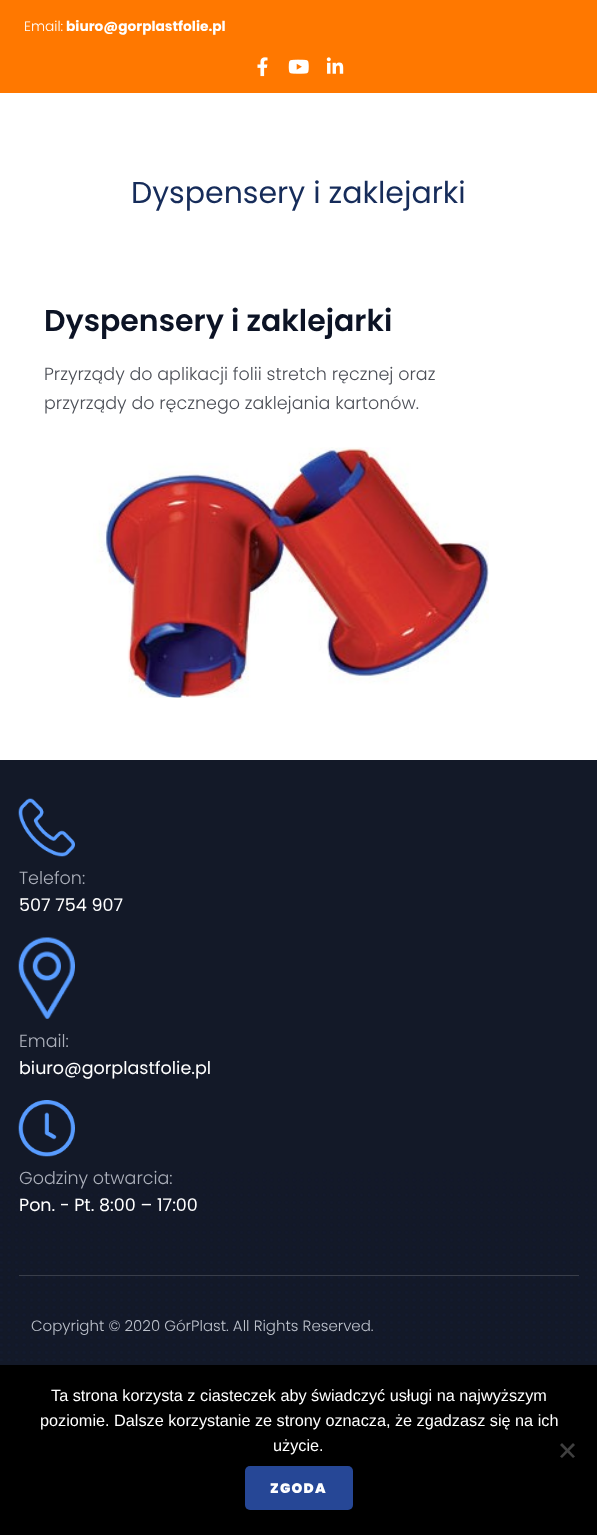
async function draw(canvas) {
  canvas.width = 597
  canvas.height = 1535
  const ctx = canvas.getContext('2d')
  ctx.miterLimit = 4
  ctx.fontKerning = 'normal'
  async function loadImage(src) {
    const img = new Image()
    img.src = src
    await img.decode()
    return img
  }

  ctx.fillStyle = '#fff'
  ctx.fillRect(0, 0, 597, 1535)
  ctx.fillStyle = '#ff7800'
  ctx.fillRect(0, 0, 597, 93)
  ctx.font = '300 13.75px Poppins'
  ctx.fillStyle = '#fff'
  ctx.fillText('Email:', 24, 31)
  ctx.font = 'bold 13.75px Poppins'
  ctx.fillText('biuro@gorplastfolie.pl', 66, 31)
  ctx.drawImage(await loadImage('image0.png'), 257, 57, 11, 20)
  ctx.drawImage(await loadImage('image1.png'), 288, 59, 21, 15)
  ctx.drawImage(await loadImage('image2.png'), 326, 57, 18, 17)
  ctx.font = '30px Poppins'
  ctx.fillStyle = '#162c5a'
  ctx.fillText('Dyspensery i zaklejarki', 131, 203)
  ctx.font = '600 30px Poppins'
  ctx.fillStyle = '#0c1325'
  ctx.fillText('Dyspensery i zaklejarki', 44, 331)
  ctx.font = '300 17.5px Poppins'
  ctx.fillStyle = '#4c4f57'
  ctx.fillText('Przyrządy do aplikacji folii stretch ręcznej oraz', 44, 380)
  ctx.fillText('przyrządy do ręcznego zaklejania kartonów.', 44, 409)
  ctx.drawImage(await loadImage('image3.png'), 93, 447, 396, 251)
  ctx.fillStyle = '#131928'
  ctx.fillRect(0, 760, 597, 605)
  ctx.fillStyle = '#393e4a'
  ctx.fillRect(19, 1275, 560, 1)
  ctx.drawImage(await loadImage('image4.png'), 0, 1172, 596, 189)
  ctx.drawImage(await loadImage('image5.png'), 18, 798, 57, 59)
  ctx.fillStyle = '#acb0bb'
  ctx.fillText('Telefon:', 19, 884)
  ctx.font = '17.5px Poppins'
  ctx.fillStyle = '#fff'
  ctx.fillText('507 754 907', 19, 911)
  ctx.drawImage(await loadImage('image6.png'), 18, 937, 57, 82)
  ctx.font = '300 17.5px Poppins'
  ctx.fillStyle = '#acb0bb'
  ctx.fillText('Email:', 19, 1047)
  ctx.font = '17.5px Poppins'
  ctx.fillStyle = '#fff'
  ctx.fillText('biuro@gorplastfolie.pl', 19, 1074)
  ctx.drawImage(await loadImage('image7.png'), 18, 1100, 57, 57)
  ctx.font = '300 17.5px Poppins'
  ctx.fillStyle = '#acb0bb'
  ctx.fillText('Godziny otwarcia:', 19, 1184)
  ctx.font = '17.5px Poppins'
  ctx.fillStyle = '#fff'
  ctx.fillText('Pon. - Pt. 8:00 – 17:00', 19, 1211)
  ctx.font = '300 15px Poppins'
  ctx.fillStyle = '#bcc1cb'
  ctx.fillText('Copyright © 2020 GórPlast. All Rights Reserved.', 31, 1331)
  ctx.fillStyle = '#000'
  ctx.fillRect(0, 1365, 597, 170)
  ctx.font = '16.25px Liberation Sans'
  ctx.fillStyle = '#fff'
  ctx.fillText('Ta strona korzysta z ciasteczek aby świadczyć usługi na najwyższym', 51, 1401)
  ctx.fillText('poziomie. Dalsze korzystanie ze strony oznacza, że zgadzasz się na ich', 40, 1426)
  ctx.fillText('użycie.', 273, 1451)
  ctx.fillStyle = '#404040'
  ctx.beginPath()
  ctx.moveTo(573, 1443)
  ctx.lineTo(575, 1445)
  ctx.lineTo(562, 1458)
  ctx.lineTo(560, 1456.5)
  ctx.closePath()
  ctx.fill()
  ctx.beginPath()
  ctx.moveTo(560, 1445)
  ctx.lineTo(562, 1443)
  ctx.lineTo(575, 1456.5)
  ctx.lineTo(573, 1458)
  ctx.closePath()
  ctx.fill()
  ctx.fillStyle = '#264796'
  ctx.beginPath()
  ctx.roundRect(245, 1466, 108, 44, 5)
  ctx.fill()
  ctx.letterSpacing = '1.25px'
  ctx.font = '900 13.75px Poppins'
  ctx.fillStyle = '#fff'
  ctx.fillText('ZGODA', 270, 1493)
}

draw(document.querySelector('canvas'))
